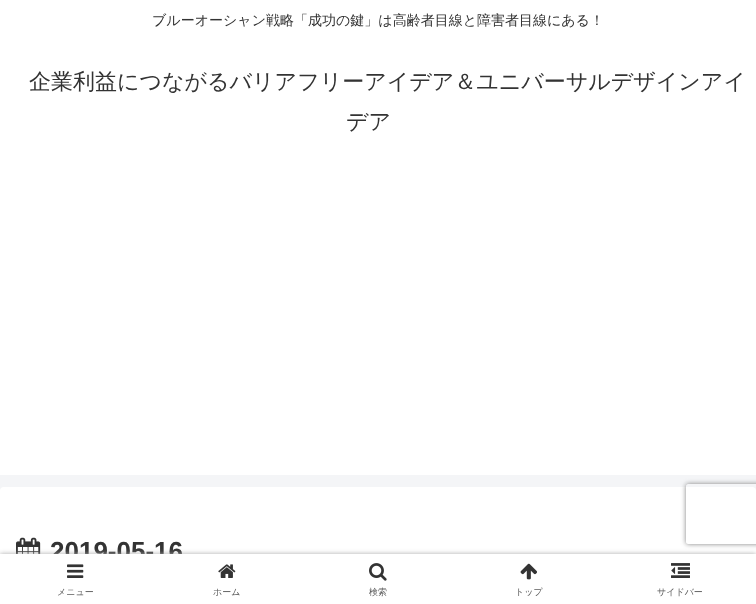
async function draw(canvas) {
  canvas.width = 756
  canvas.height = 604
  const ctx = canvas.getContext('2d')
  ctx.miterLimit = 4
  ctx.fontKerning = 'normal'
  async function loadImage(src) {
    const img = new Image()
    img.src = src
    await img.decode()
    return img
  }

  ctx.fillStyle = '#f4f5f7'
  ctx.fillRect(0, 0, 756, 604)
  ctx.fillStyle = '#fff'
  ctx.fillRect(0, 0, 756, 475)
  ctx.font = '500 14px WenQuanYi Zen Hei'
  ctx.fillStyle = '#333'
  ctx.fillText('ブルーオーシャン戦略「成功の鍵」は高齢者目線と障害者目線にある！', 152, 25)
  ctx.font = '500 22px WenQuanYi Zen Hei'
  ctx.fillText('企業利益につながるバリアフリーアイデア＆ユニバーサルデザインアイ', 29, 89)
  ctx.fillText('デア', 346, 129)
  ctx.fillStyle = '#fff'
  ctx.beginPath()
  ctx.roundRect(0, 487, 756, 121, 4)
  ctx.fill()
  ctx.drawImage(await loadImage('image0.png'), 16, 537, 25, 17)
  ctx.font = 'bold 26px Liberation Sans'
  ctx.fillStyle = '#333'
  ctx.fillText('2019-05-16', 50, 560)
  ctx.fillStyle = '#a9a9a9'
  ctx.filter = 'blur(2.5px)'
  ctx.beginPath()
  ctx.rect(0, 554, 756, 50)
  ctx.fill()
  ctx.filter = 'none'
  ctx.fillStyle = '#fff'
  ctx.fillRect(0, 554, 756, 50)
  ctx.drawImage(await loadImage('image1.png'), 67, 564, 17, 14)
  ctx.font = '500 9px WenQuanYi Zen Hei'
  ctx.fillStyle = '#5c5c5c'
  ctx.fillText('メニュー', 57, 595)
  ctx.drawImage(await loadImage('image2.png'), 218, 564, 18, 14)
  ctx.fillText('ホーム', 213, 595)
  ctx.drawImage(await loadImage('image3.png'), 369, 563, 18, 18)
  ctx.fillText('検索', 369, 595)
  ctx.drawImage(await loadImage('image4.png'), 520, 563, 17, 17)
  ctx.fillText('トップ', 515, 595)
  ctx.drawImage(await loadImage('image5.png'), 671, 563, 19, 15)
  ctx.fillText('サイドバー', 657, 595)
  ctx.save()
  ctx.beginPath()
  ctx.moveTo(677, 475)
  ctx.lineTo(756, 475)
  ctx.lineTo(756, 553)
  ctx.lineTo(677, 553)
  ctx.closePath()
  ctx.moveTo(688, 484)
  ctx.lineTo(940, 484)
  ctx.bezierCurveTo(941, 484, 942, 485, 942, 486)
  ctx.lineTo(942, 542)
  ctx.bezierCurveTo(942, 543, 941, 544, 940, 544)
  ctx.lineTo(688, 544)
  ctx.bezierCurveTo(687, 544, 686, 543, 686, 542)
  ctx.lineTo(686, 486)
  ctx.bezierCurveTo(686, 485, 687, 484, 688, 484)
  ctx.closePath()
  ctx.clip('evenodd')
  ctx.fillStyle = '#808080'
  ctx.filter = 'blur(2.5px)'
  ctx.beginPath()
  ctx.roundRect(686, 484, 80, 60, 2)
  ctx.fill()
  ctx.filter = 'none'
  ctx.restore()
}

draw(document.querySelector('canvas'))
